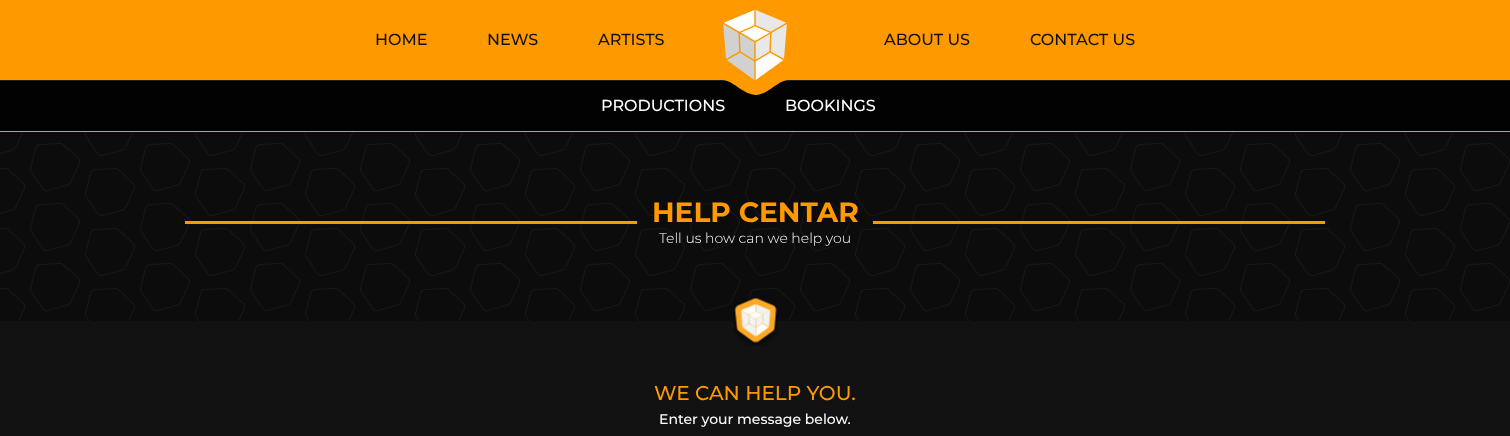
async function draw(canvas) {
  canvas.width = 1510
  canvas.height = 436
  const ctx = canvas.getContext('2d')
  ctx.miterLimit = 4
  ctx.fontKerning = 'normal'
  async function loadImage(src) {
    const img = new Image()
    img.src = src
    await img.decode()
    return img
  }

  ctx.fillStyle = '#121212'
  ctx.fillRect(0, 0, 1510, 436)
  ctx.fillStyle = '#fe9900'
  ctx.fillRect(0, 0, 1510, 80)
  ctx.drawImage(await loadImage('image0.png'), 723, 10, 64, 70)
  ctx.fillStyle = '#020202'
  ctx.fillRect(0, 81, 1510, 50)
  ctx.fillStyle = '#202020'
  ctx.fillRect(0, 80, 1510, 1)
  ctx.fillStyle = '#fe9900'
  ctx.beginPath()
  ctx.moveTo(723, 80)
  ctx.bezierCurveTo(732, 80, 744, 95, 756, 95)
  ctx.bezierCurveTo(767, 95, 779, 80, 788, 80)
  ctx.closePath()
  ctx.fill()
  ctx.font = '500 16px Montserrat'
  ctx.fillStyle = '#121212'
  ctx.fillText('HOME', 375, 45)
  ctx.fillText('NEWS', 487, 45)
  ctx.fillText('ARTISTS', 598, 45)
  ctx.fillText('ABOUT US', 884, 45)
  ctx.fillText('CONTACT US', 1030, 45)
  ctx.fillStyle = '#fff'
  ctx.fillText('PRODUCTIONS', 601, 111)
  ctx.fillText('BOOKINGS', 785, 111)
  ctx.fillStyle = '#0c0c0c'
  ctx.fillRect(0, 132, 1510, 189)
  ctx.drawImage(await loadImage('image1.png'), 0, 132, 1510, 189)
  ctx.fillStyle = '#fe9900'
  ctx.fillRect(0, 131, 1510, 1)
  ctx.fillRect(185, 221, 452, 3)
  ctx.font = 'bold 28px Montserrat'
  ctx.fillText('HELP CENTAR', 652, 222)
  ctx.fillRect(873, 221, 452, 3)
  ctx.font = '300 14px Montserrat'
  ctx.fillStyle = '#fff'
  ctx.fillText('Tell us how can we help you', 659, 243)
  ctx.drawImage(await loadImage('image2.png'), 733, 298, 45, 48)
  ctx.font = '500 20px Montserrat'
  ctx.fillStyle = '#fe9900'
  ctx.fillText('WE CAN HELP YOU.', 654, 400)
  ctx.font = '500 14px Montserrat'
  ctx.fillStyle = '#fff'
  ctx.fillText('Enter your message below.', 659, 424)
}

draw(document.querySelector('canvas'))
